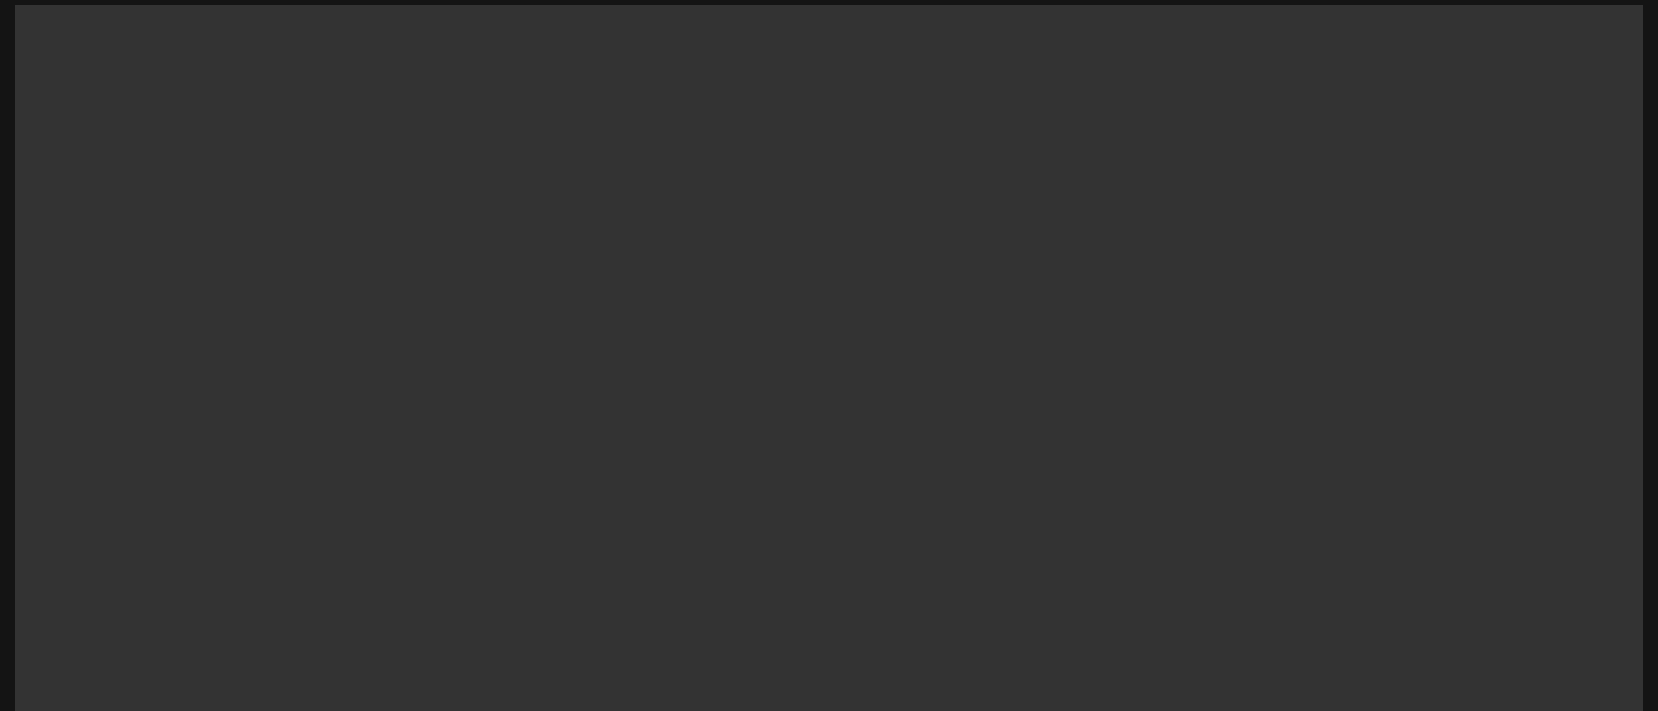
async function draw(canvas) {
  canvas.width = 1658
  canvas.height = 711
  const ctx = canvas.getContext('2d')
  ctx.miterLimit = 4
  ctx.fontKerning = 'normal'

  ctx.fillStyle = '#141414'
  ctx.fillRect(0, 0, 1658, 711)
  ctx.fillStyle = '#333'
  ctx.fillRect(15, 5, 1628, 706)
}

draw(document.querySelector('canvas'))
